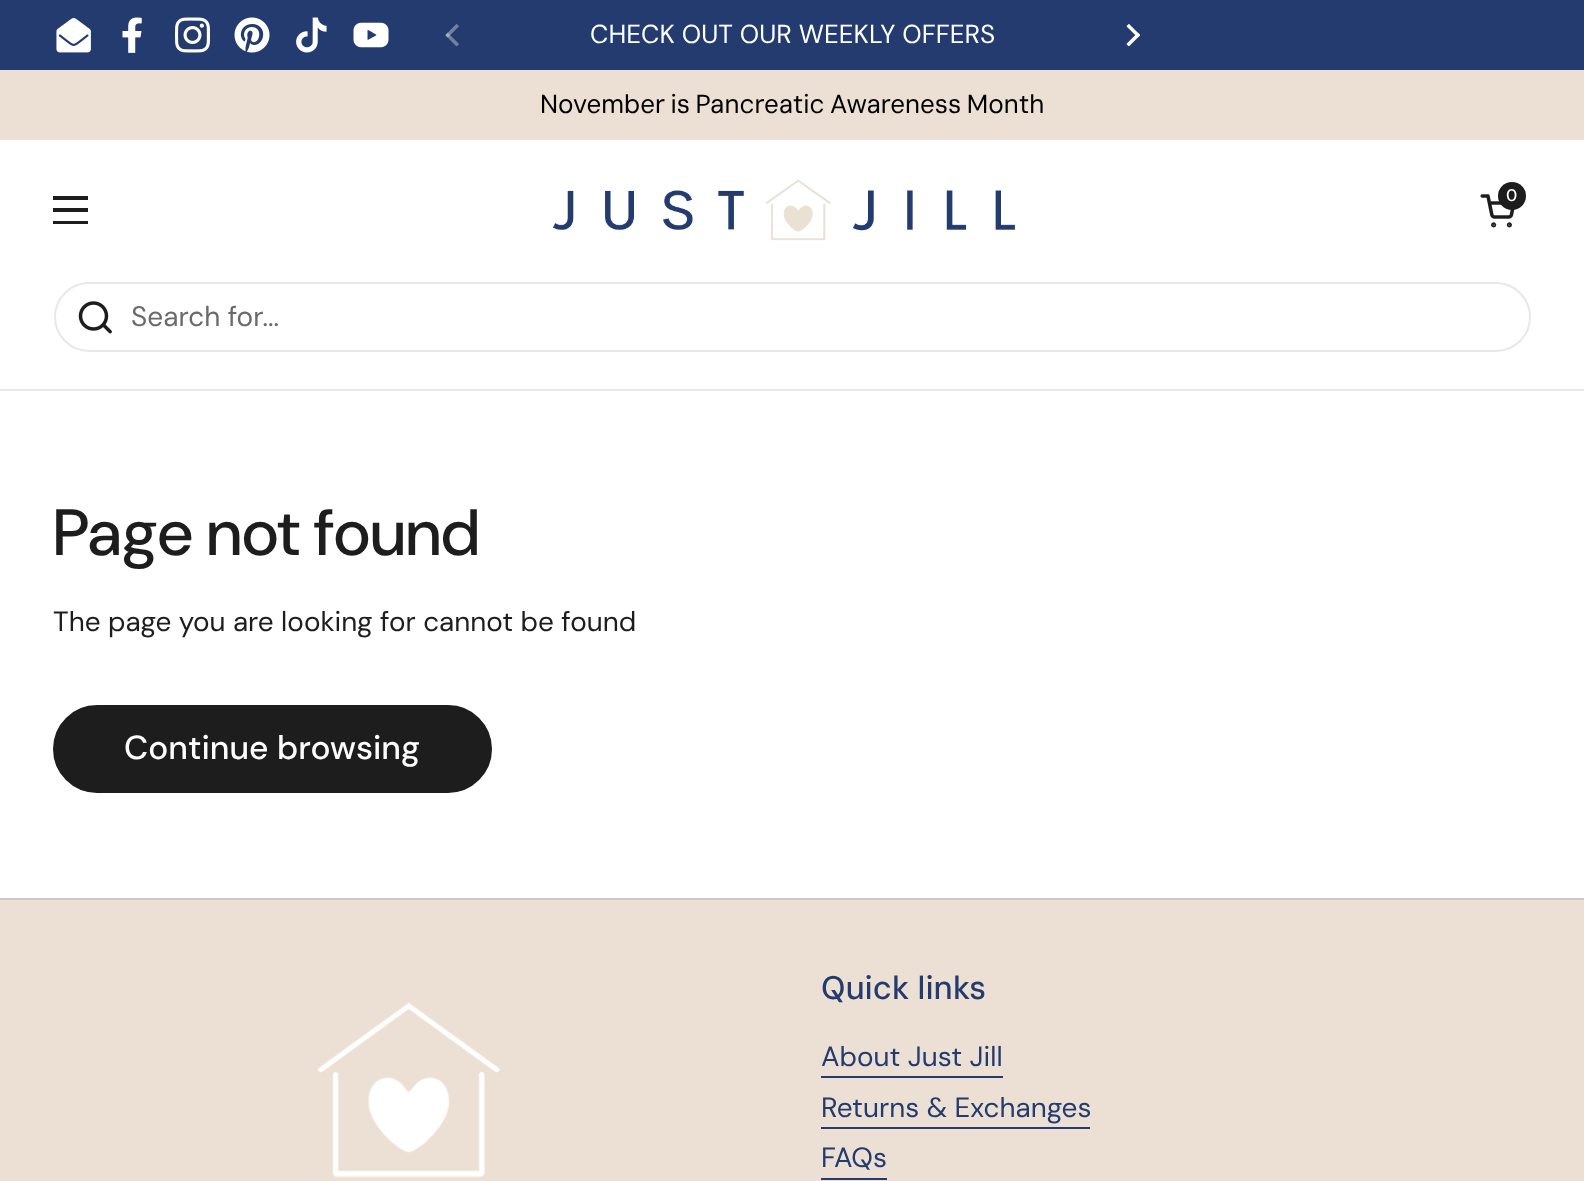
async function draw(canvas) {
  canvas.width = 1584
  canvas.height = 1181
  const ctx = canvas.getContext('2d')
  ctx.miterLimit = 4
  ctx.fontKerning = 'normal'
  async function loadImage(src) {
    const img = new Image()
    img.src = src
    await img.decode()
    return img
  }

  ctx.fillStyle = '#fff'
  ctx.fillRect(0, 0, 1584, 1181)
  ctx.fillStyle = '#233b6e'
  ctx.fillRect(0, 0, 1584, 70)
  ctx.drawImage(await loadImage('image0.png'), 56, 18, 35, 35)
  ctx.drawImage(await loadImage('image1.png'), 122, 17, 20, 36)
  ctx.drawImage(await loadImage('image2.png'), 175, 17, 35, 36)
  ctx.drawImage(await loadImage('image3.png'), 234, 17, 36, 36)
  ctx.drawImage(await loadImage('image4.png'), 296, 17, 31, 36)
  ctx.drawImage(await loadImage('image5.png'), 353, 22, 36, 26)
  ctx.drawImage(await loadImage('image6.png'), 445, 24, 14, 23)
  ctx.font = '26px DM Sans'
  ctx.fillStyle = '#fff'
  ctx.fillText('CHECK OUT OUR WEEKLY OFFERS', 590, 43)
  ctx.drawImage(await loadImage('image7.png'), 1126, 24, 14, 23)
  ctx.fillStyle = '#ece0d5'
  ctx.fillRect(0, 70, 1584, 70)
  ctx.wordSpacing = '-1.5px'
  ctx.fillStyle = '#000'
  ctx.fillText('November is Pancreatic Awareness Month', 540, 113)
  ctx.fillStyle = '#1d1d1d'
  ctx.fillRect(53, 196, 35, 4)
  ctx.fillRect(53, 208, 35, 4)
  ctx.fillRect(53, 221, 35, 3)
  ctx.drawImage(await loadImage('image8.png'), 552, 179, 464, 62)
  ctx.drawImage(await loadImage('image9.png'), 1480, 194, 35, 34)
  ctx.beginPath()
  ctx.arc(1512, 196, 14, 0, 2 * Math.PI)
  ctx.fill()
  ctx.wordSpacing = '0px'
  ctx.font = '500 17px "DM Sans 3"'
  ctx.fillStyle = '#fff'
  ctx.fillText('0', 1506, 201)
  ctx.fillStyle = '#e8e8e8'
  ctx.fillRect(0, 389, 1584, 2)
  ctx.beginPath()
  ctx.roundRect(55, 283, 1475, 68, 34)
  ctx.strokeStyle = '#e8e8e8'
  ctx.lineWidth = 2
  ctx.stroke()
  ctx.drawImage(await loadImage('image10.png'), 78, 301, 34, 33)
  ctx.font = '28px "DM Sans 3"'
  ctx.fillStyle = '#6a6a6a'
  ctx.fillText('Search for...', 131, 326)
  ctx.font = '500 65.25px DM Sans'
  ctx.fillStyle = '#1d1d1d'
  ctx.fillText('Page not found', 53, 555)
  ctx.font = '27.9px "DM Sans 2"'
  ctx.fillText('The page you are looking for cannot be found', 53, 631)
  ctx.beginPath()
  ctx.roundRect(54, 706, 437, 86, 43)
  ctx.fill()
  ctx.strokeStyle = '#1d1d1d'
  ctx.stroke()
  ctx.font = '500 33.5px "DM Sans 2"'
  ctx.fillStyle = '#fff'
  ctx.fillText('Continue browsing', 124, 759)
  ctx.fillStyle = '#ece0d5'
  ctx.fillRect(0, 900, 1584, 281)
  ctx.fillStyle = '#cec7c6'
  ctx.fillRect(0, 898, 1584, 2)
  ctx.drawImage(await loadImage('image11.png'), 317, 1002, 184, 176)
  ctx.font = '500 32.5px "DM Sans 3"'
  ctx.fillStyle = '#233b6e'
  ctx.fillText('Quick links', 821, 999)
  ctx.font = '27.9px "DM Sans 2"'
  ctx.fillText('About Just Jill', 821, 1066)
  ctx.fillRect(821, 1076, 182, 2)
  ctx.fillText('Returns & Exchanges', 821, 1117)
  ctx.fillRect(821, 1127, 269, 2)
  ctx.fillText('FAQs', 821, 1167)
  ctx.fillRect(821, 1178, 66, 2)
}

draw(document.querySelector('canvas'))
